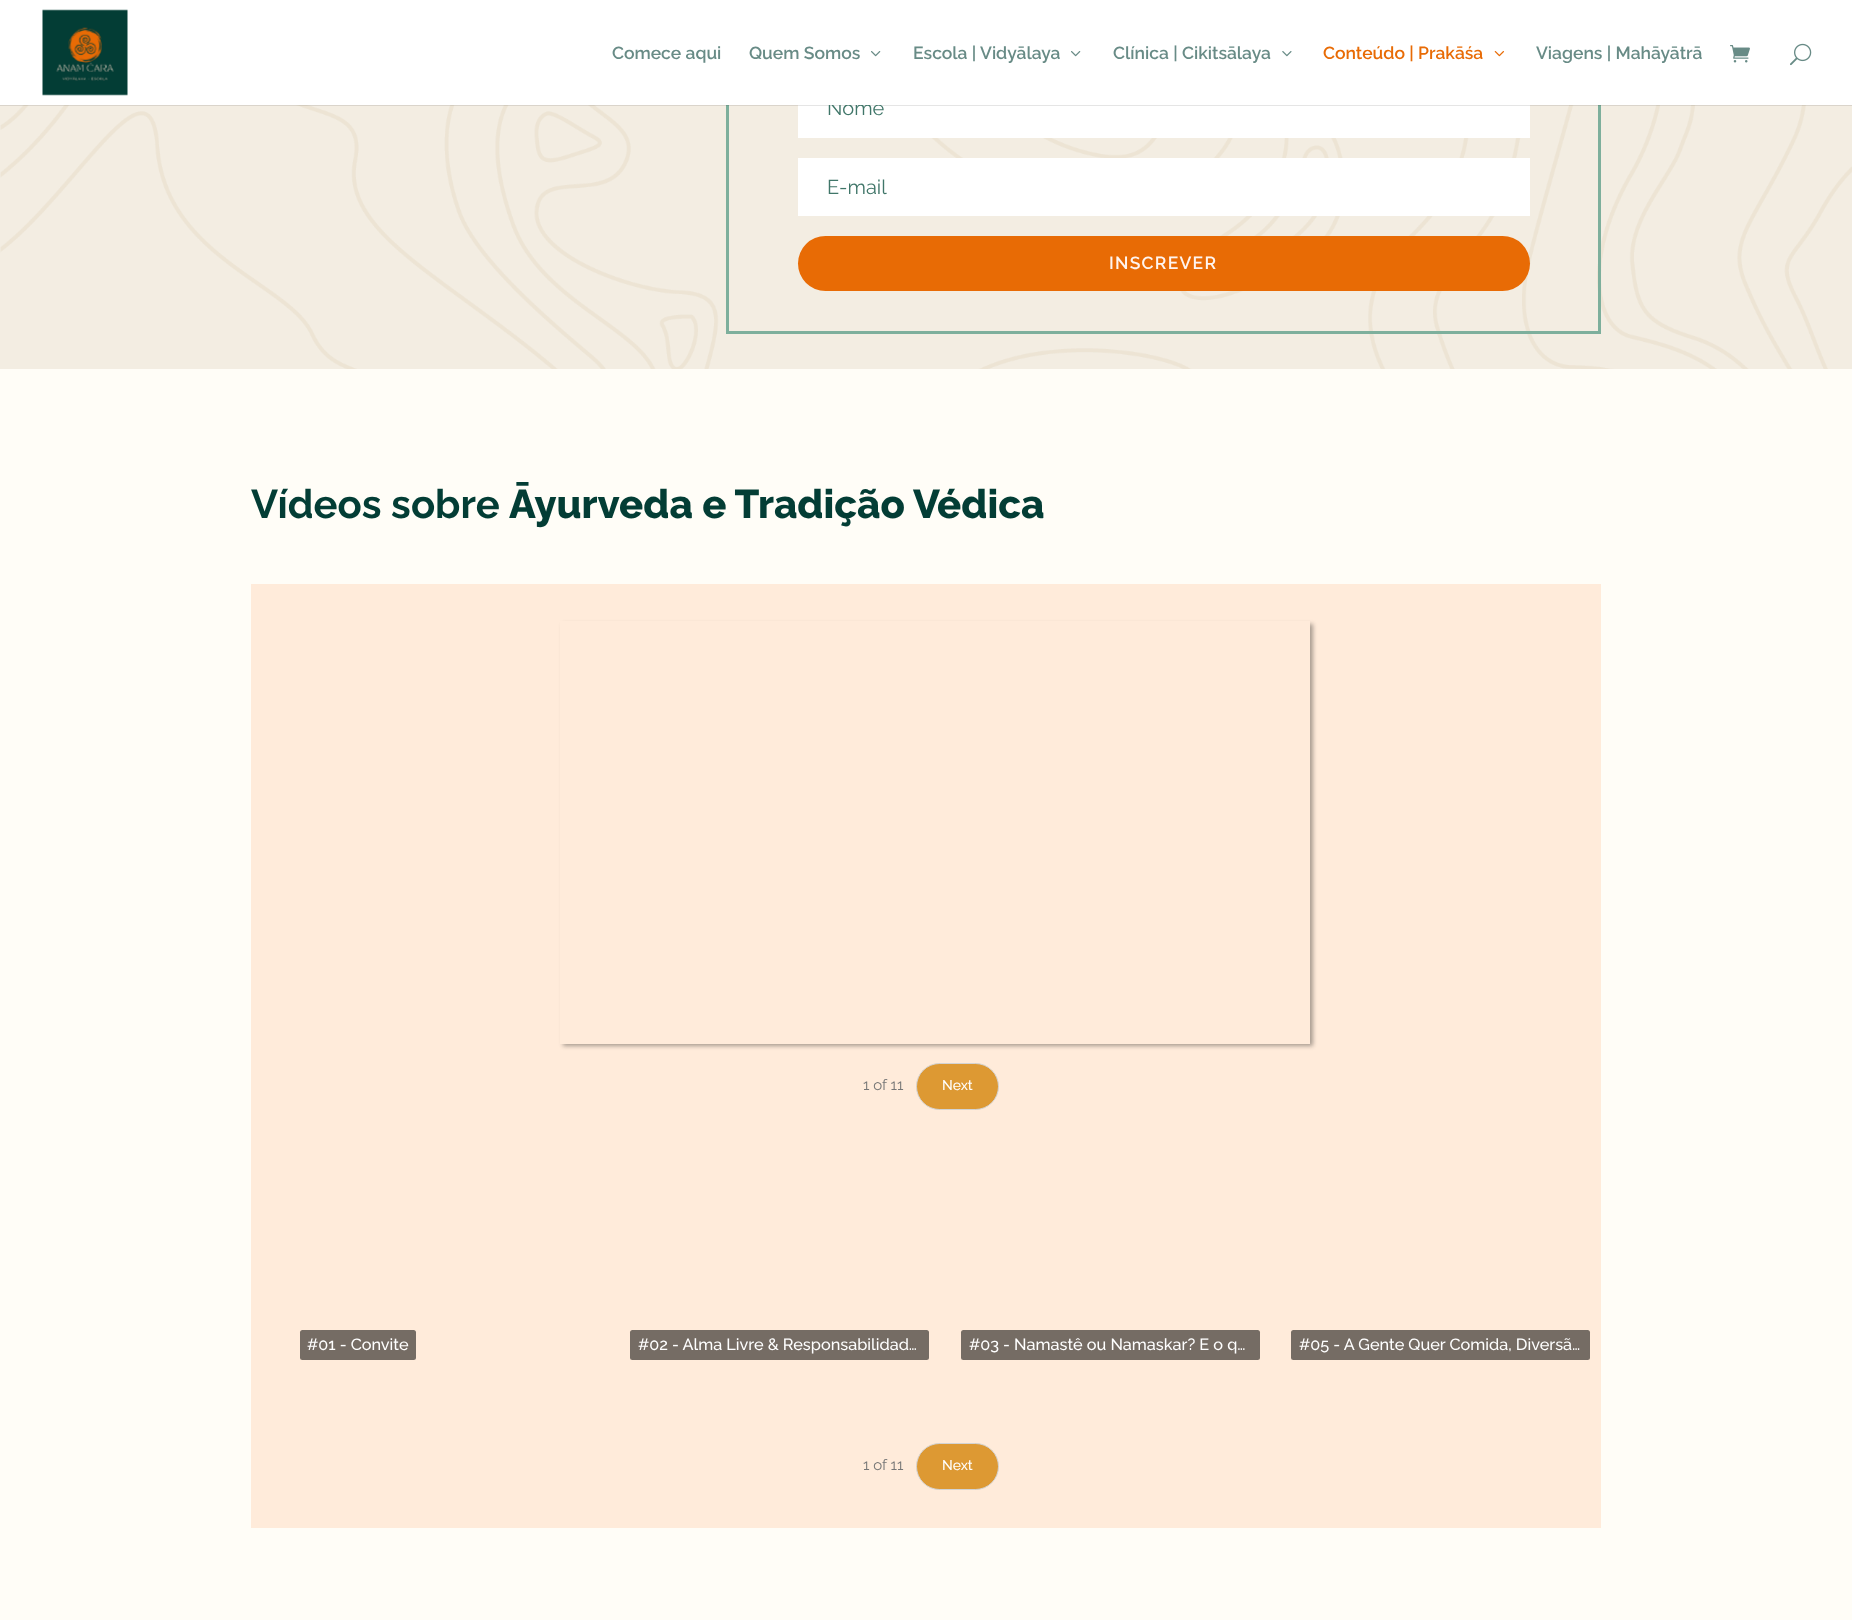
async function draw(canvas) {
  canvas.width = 1852
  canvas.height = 1620
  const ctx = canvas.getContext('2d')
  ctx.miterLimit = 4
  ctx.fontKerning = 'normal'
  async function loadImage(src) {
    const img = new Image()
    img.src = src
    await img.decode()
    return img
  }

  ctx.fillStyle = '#f3ede2'
  ctx.fillRect(0, 0, 1852, 1620)
  ctx.drawImage(await loadImage('image6.png'), 0, 105, 1852, 264)
  ctx.strokeStyle = '#7daf9c'
  ctx.lineWidth = 3
  ctx.strokeRect(727.5, -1.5, 872, 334)
  ctx.fillStyle = '#fff'
  ctx.fillRect(798, 105, 732, 33)
  ctx.fillStyle = '#0000001a'
  ctx.beginPath()
  ctx.moveTo(0, 105)
  ctx.lineTo(0, 106)
  ctx.lineTo(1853, 106)
  ctx.lineTo(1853, 1)
  ctx.lineTo(1852, 1)
  ctx.lineTo(1852, 105)
  ctx.closePath()
  ctx.fill()
  ctx.font = '100 20px Raleway'
  ctx.fillStyle = '#407669'
  ctx.fillText('Nome', 827, 115)
  ctx.fillStyle = '#fff'
  ctx.fillRect(0, 0, 1852, 105)
  ctx.drawImage(await loadImage('image0.png'), 42, 9, 86, 87)
  ctx.font = '100 17.5px "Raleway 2"'
  ctx.fillStyle = '#688b86'
  ctx.fillText('Comece aqui', 612, 59)
  ctx.fillText('Quem Somos', 749, 59)
  ctx.drawImage(await loadImage('image1.png'), 871, 51, 10, 6)
  ctx.fillText('Escola | Vidyālaya', 913, 59)
  ctx.drawImage(await loadImage('image1.png'), 1071, 51, 10, 6)
  ctx.fillText('Clínica | Cikitsālaya', 1113, 59)
  ctx.drawImage(await loadImage('image2.png'), 1282, 51, 10, 6)
  ctx.fillStyle = '#e86b05'
  ctx.fillText('Conteúdo | Prakāśa', 1323, 59)
  ctx.drawImage(await loadImage('image3.png'), 1494, 51, 10, 6)
  ctx.fillStyle = '#688b86'
  ctx.fillText('Viagens | Mahāyātrā', 1536, 59)
  ctx.drawImage(await loadImage('image4.png'), 1730, 45, 20, 18)
  ctx.drawImage(await loadImage('image5.png'), 1790, 43, 22, 23)
  ctx.fillStyle = '#fff'
  ctx.fillRect(798, 158, 732, 58)
  ctx.font = '100 20px Raleway'
  ctx.fillStyle = '#407669'
  ctx.fillText('E-mail', 827, 194)
  ctx.fillStyle = '#e86b05'
  ctx.beginPath()
  ctx.roundRect(798, 236, 732, 55, 27.5)
  ctx.fill()
  ctx.letterSpacing = '1.25px'
  ctx.font = '100 17.5px "Raleway 2"'
  ctx.fillStyle = '#fff4ef'
  ctx.fillText('INSCREVER', 1109, 269)
  ctx.fillStyle = '#fffdf7'
  ctx.fillRect(0, 369, 1852, 1251)
  ctx.letterSpacing = '0px'
  ctx.font = '100 40px "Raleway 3"'
  ctx.fillStyle = '#033d35'
  ctx.fillText('Vídeos sobre', 251, 518)
  ctx.font = '100 40px "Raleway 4"'
  ctx.fillText('Āyurveda e Tradição Védica', 509, 518)
  ctx.fillStyle = '#ffebda'
  ctx.fillRect(251, 584, 1350, 944)
  ctx.save()
  ctx.beginPath()
  ctx.moveTo(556, 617)
  ctx.lineTo(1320, 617)
  ctx.lineTo(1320, 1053)
  ctx.lineTo(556, 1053)
  ctx.closePath()
  ctx.moveTo(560, 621)
  ctx.lineTo(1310, 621)
  ctx.lineTo(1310, 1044)
  ctx.lineTo(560, 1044)
  ctx.closePath()
  ctx.clip('evenodd')
  ctx.fillStyle = '#0a0a0a59'
  ctx.filter = 'blur(2px)'
  ctx.beginPath()
  ctx.rect(563, 624, 750, 422)
  ctx.fill()
  ctx.filter = 'none'
  ctx.restore()
  ctx.font = '100 15px Raleway'
  ctx.fillStyle = '#767676'
  ctx.fillText('1 of 11', 863, 1090)
  ctx.fillStyle = '#d93'
  ctx.beginPath()
  ctx.roundRect(916.5, 1063.5, 82, 46, 23)
  ctx.fill()
  ctx.strokeStyle = '#d3d3d3'
  ctx.lineWidth = 1
  ctx.stroke()
  ctx.font = '100 14px "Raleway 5"'
  ctx.fillStyle = '#fff'
  ctx.fillText('Next', 942, 1090)
  ctx.fillStyle = '#756c64'
  ctx.beginPath()
  ctx.roundRect(300, 1330, 116, 30, 2.5)
  ctx.fill()
  ctx.font = '100 16.25px "Raleway 5"'
  ctx.fillStyle = '#fff'
  ctx.fillText('#01 - Convite', 307, 1350)
  ctx.fillStyle = '#756c64'
  ctx.beginPath()
  ctx.roundRect(630, 1330, 299, 30, 2.5)
  ctx.fill()
  ctx.fillStyle = '#fff'
  ctx.fillText('#02 - Alma Livre & Responsabilidad…', 638, 1350)
  ctx.fillStyle = '#756c64'
  ctx.beginPath()
  ctx.roundRect(961, 1330, 299, 30, 2.5)
  ctx.fill()
  ctx.fillStyle = '#fff'
  ctx.fillText('#03 - Namastê ou Namaskar? E o q…', 969, 1350)
  ctx.fillStyle = '#756c64'
  ctx.beginPath()
  ctx.roundRect(1291, 1330, 299, 30, 2.5)
  ctx.fill()
  ctx.fillStyle = '#fff'
  ctx.fillText('#05 - A Gente Quer Comida, Diversã…', 1299, 1350)
  ctx.font = '100 15px Raleway'
  ctx.fillStyle = '#767676'
  ctx.fillText('1 of 11', 863, 1470)
  ctx.fillStyle = '#d93'
  ctx.beginPath()
  ctx.roundRect(916.5, 1443.5, 82, 46, 23)
  ctx.fill()
  ctx.stroke()
  ctx.font = '100 14px "Raleway 5"'
  ctx.fillStyle = '#fff'
  ctx.fillText('Next', 942, 1470)
}

draw(document.querySelector('canvas'))
